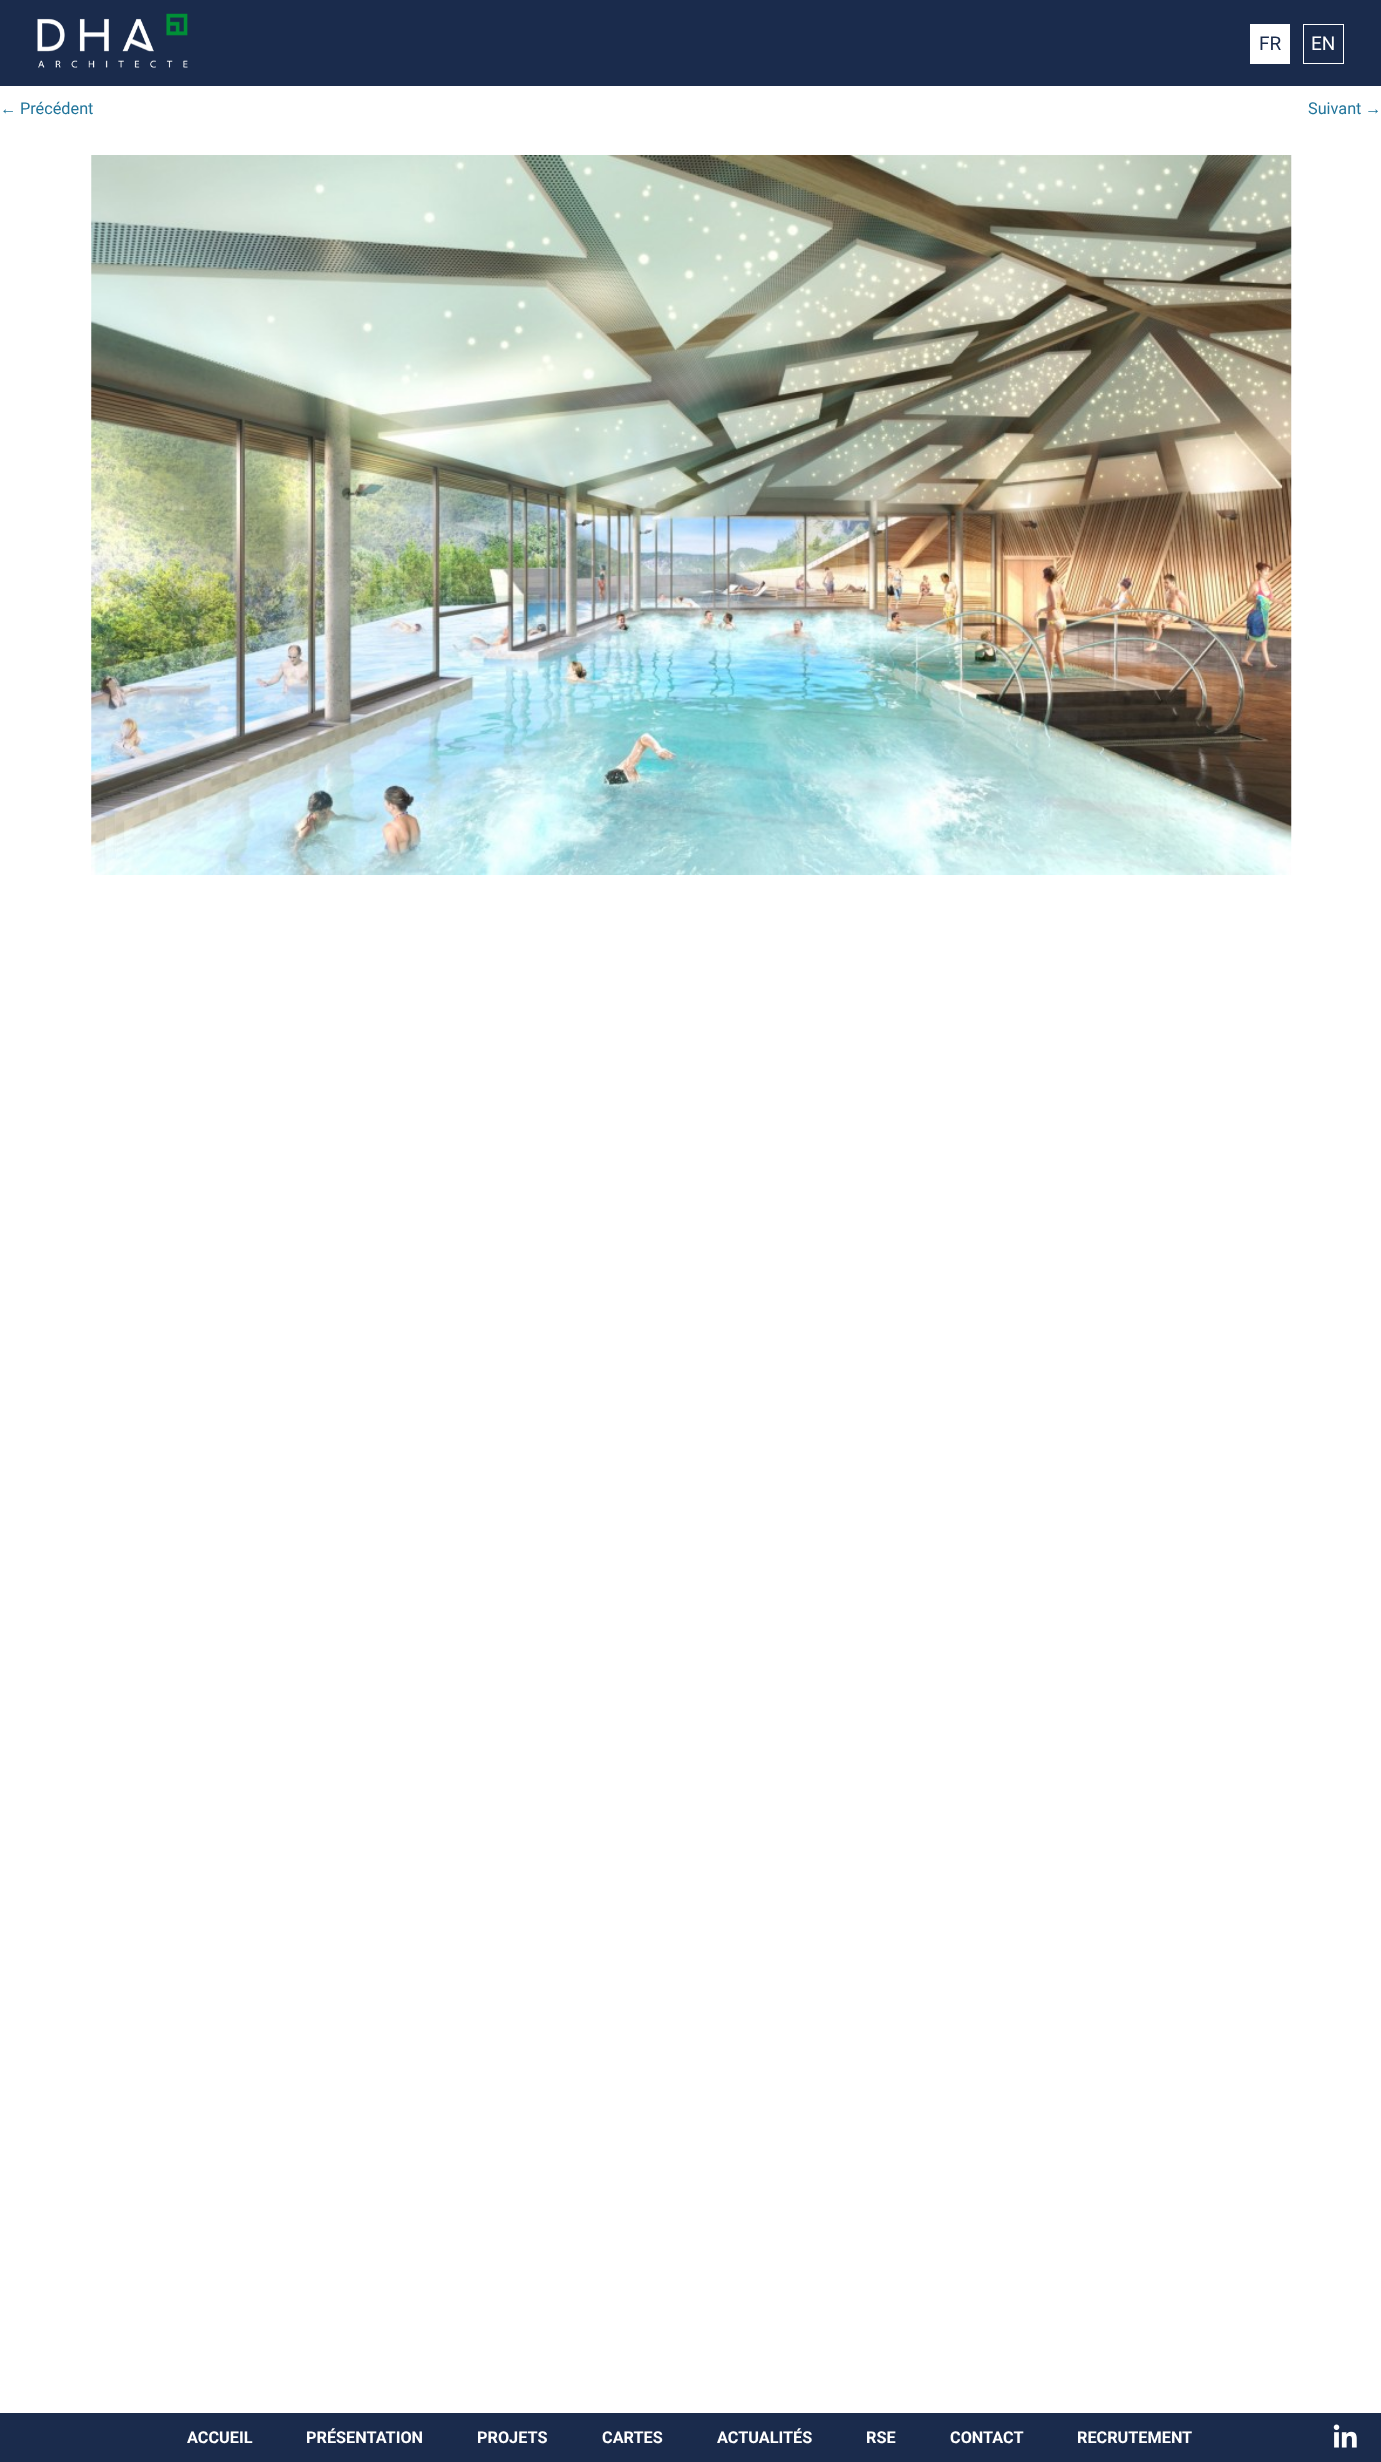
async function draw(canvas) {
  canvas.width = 1381
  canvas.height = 2462
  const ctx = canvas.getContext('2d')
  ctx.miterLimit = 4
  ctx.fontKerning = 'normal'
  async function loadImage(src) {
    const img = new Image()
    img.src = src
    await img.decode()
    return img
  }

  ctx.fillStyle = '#fff'
  ctx.fillRect(0, 0, 1381, 2462)
  ctx.fillStyle = '#1a2b4c'
  ctx.fillRect(0, 0, 1381, 86)
  ctx.drawImage(await loadImage('image0.png'), 37, 13, 151, 55)
  ctx.fillStyle = '#fff'
  ctx.fillRect(1250, 24, 40, 40)
  ctx.font = '19px Roboto'
  ctx.fillStyle = '#1a2b4c'
  ctx.fillText('FR', 1259, 50)
  ctx.strokeStyle = '#fff'
  ctx.strokeRect(1303.5, 24.5, 40, 39)
  ctx.fillStyle = '#fff'
  ctx.fillText('EN', 1311, 50)
  ctx.font = '16.25px Liberation Sans'
  ctx.fillStyle = '#21759b'
  ctx.fillText('←', 0, 114)
  ctx.font = '16.25px Roboto'
  ctx.fillText('Précédent', 20, 114)
  ctx.fillText('Suivant', 1308, 114)
  ctx.font = '16.25px Liberation Sans'
  ctx.fillText('→', 1365, 114)
  ctx.drawImage(await loadImage('image1.png'), 91, 155, 1201, 720)
  ctx.fillStyle = '#1a2b4c'
  ctx.fillRect(0, 2413, 1381, 49)
  ctx.font = 'bold 16.25px Roboto'
  ctx.fillStyle = '#fff'
  ctx.fillText('ACCUEIL', 187, 2443)
  ctx.fillText('PRÉSENTATION', 306, 2443)
  ctx.fillText('PROJETS', 477, 2443)
  ctx.fillText('CARTES', 602, 2443)
  ctx.fillText('ACTUALITÉS', 717, 2443)
  ctx.fillText('RSE', 866, 2443)
  ctx.fillText('CONTACT', 950, 2443)
  ctx.fillText('RECRUTEMENT', 1077, 2443)
  ctx.drawImage(await loadImage('image2.png'), 1333, 2424, 24, 24)
}

draw(document.querySelector('canvas'))
